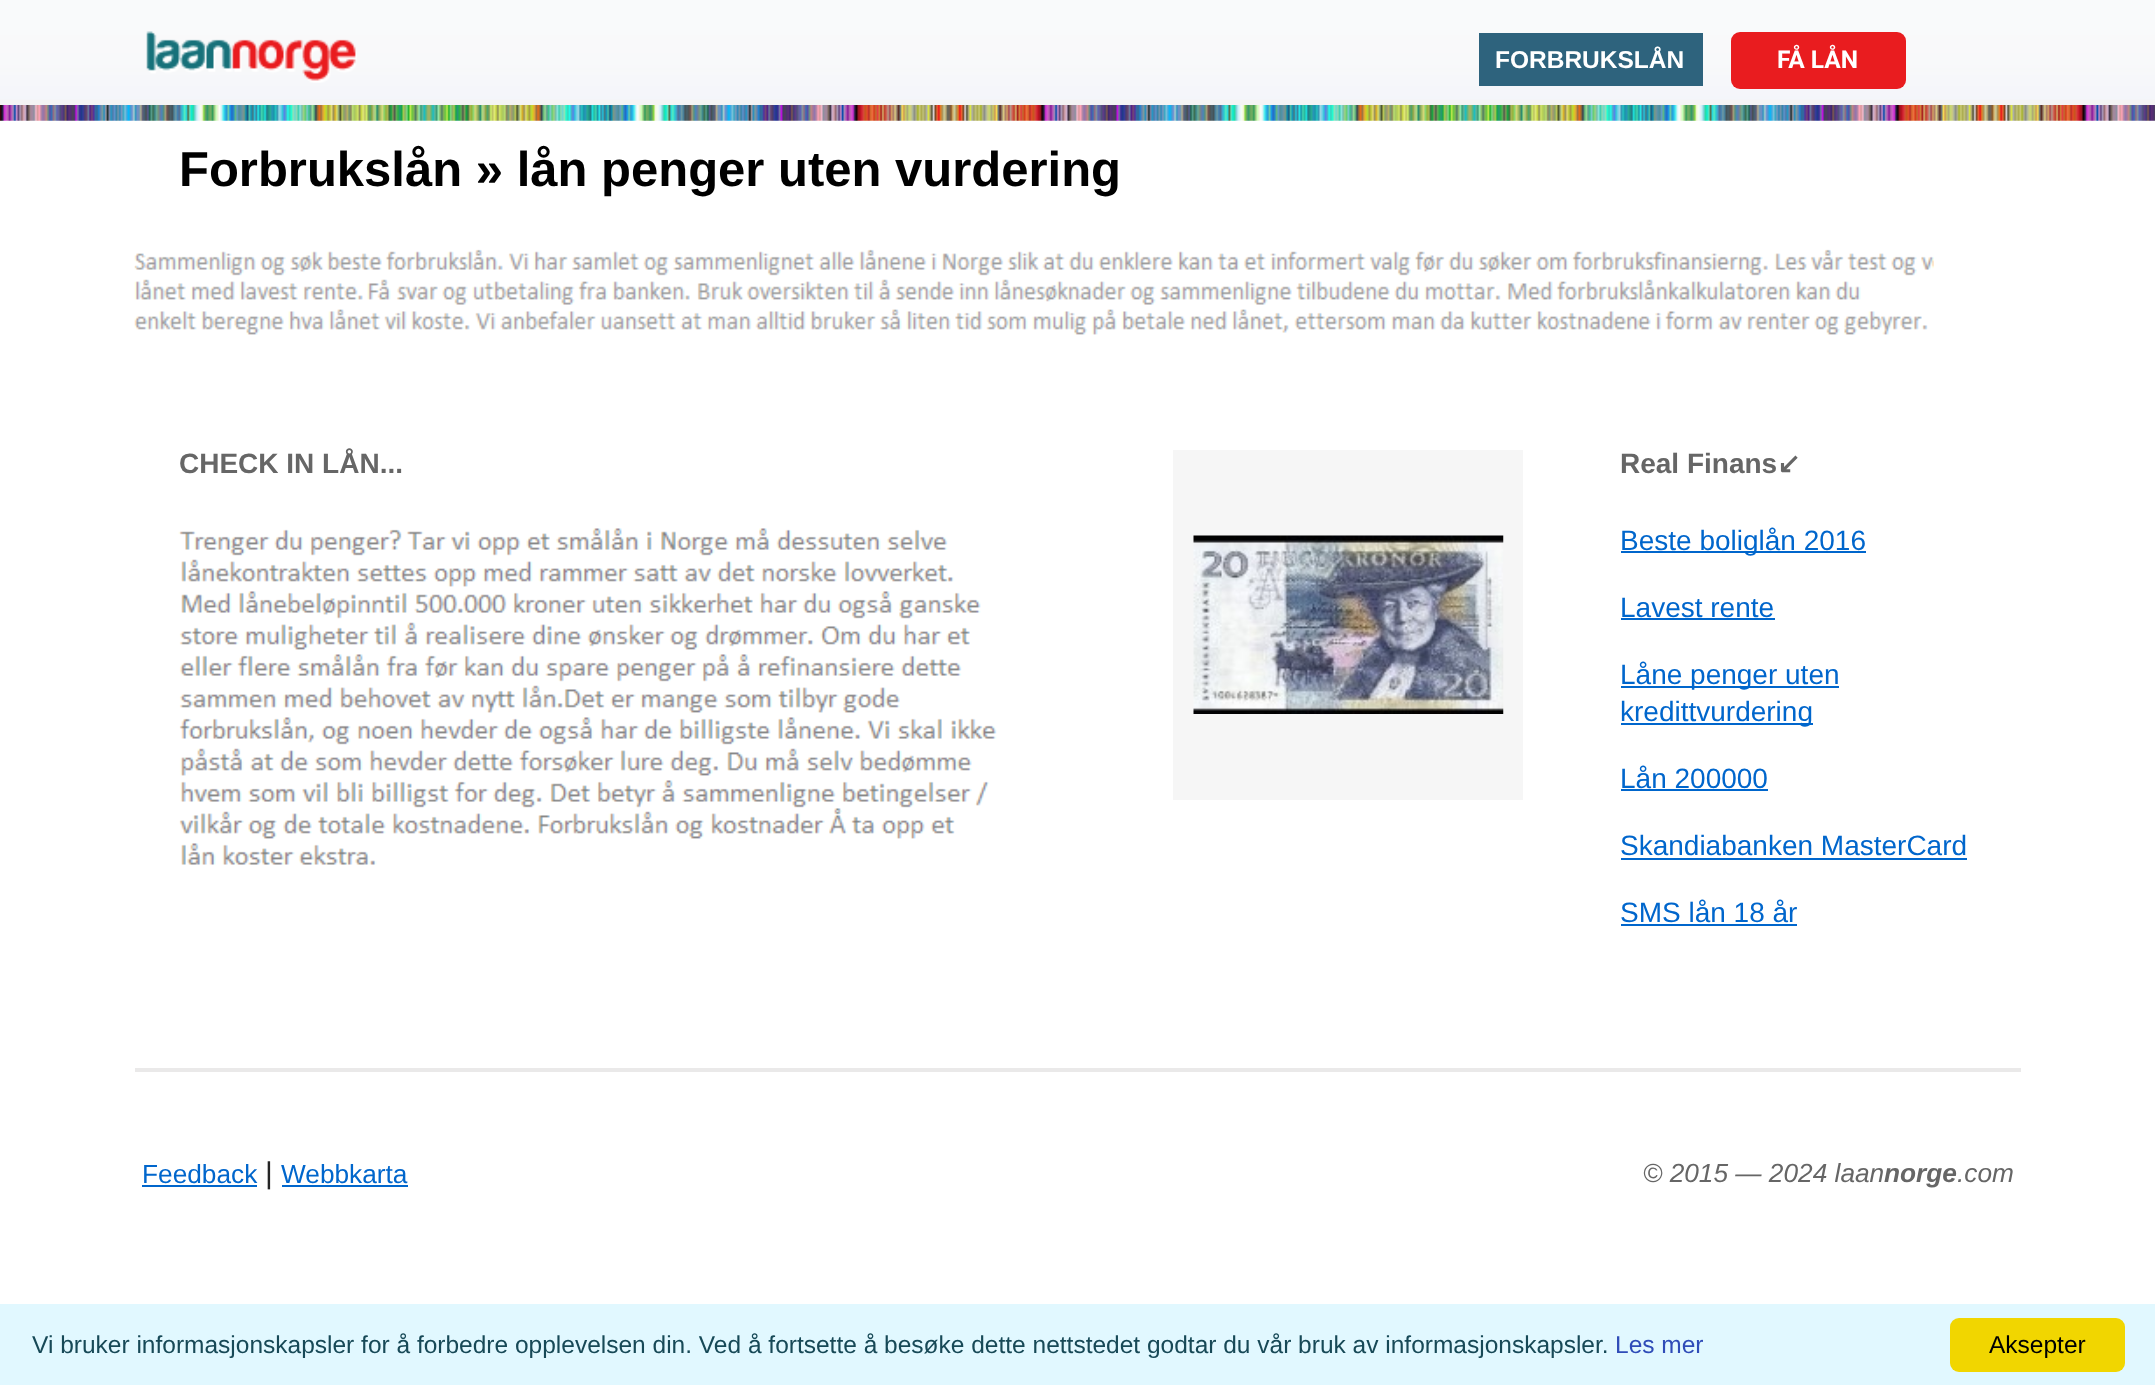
async function draw(canvas) {
  canvas.width = 2155
  canvas.height = 1385
  const ctx = canvas.getContext('2d')
  ctx.miterLimit = 4
  ctx.fontKerning = 'normal'
  async function loadImage(src) {
    const img = new Image()
    img.src = src
    await img.decode()
    return img
  }

  ctx.fillStyle = '#fff'
  ctx.fillRect(0, 0, 2155, 1385)
  ctx.drawImage(await loadImage('image0.png'), 0, 0, 2155, 105)
  ctx.drawImage(await loadImage('image1.png'), 146, 31, 211, 52)
  ctx.fillStyle = '#2e637d'
  ctx.fillRect(1479, 33, 224, 53)
  ctx.font = 'bold 24.5px Liberation Sans'
  ctx.fillStyle = '#fff'
  ctx.fillText('FORBRUKSLÅN', 1495, 68)
  ctx.fillStyle = '#e91c1f'
  ctx.beginPath()
  ctx.roundRect(1731, 32, 175, 57, 9)
  ctx.fill()
  ctx.font = 'bold 24.5px Roboto'
  ctx.fillStyle = '#fff'
  ctx.fillText('FÅ LÅN', 1777, 68)
  ctx.drawImage(await loadImage('image2.png'), 0, 105, 2155, 16)
  ctx.font = 'bold 49px Liberation Sans'
  ctx.fillStyle = '#000'
  ctx.fillText('Forbrukslån » lån penger uten vurdering', 179, 186)
  ctx.drawImage(await loadImage('image3.png'), 134, 249, 1800, 86)
  ctx.fillStyle = '#eae9e9'
  ctx.fillRect(135, 1068, 1886, 4)
  ctx.font = 'bold 28px Liberation Sans'
  ctx.fillStyle = '#666'
  ctx.fillText('CHECK IN LÅN...', 179, 473)
  ctx.drawImage(await loadImage('image4.png'), 178, 528, 819, 337)
  ctx.fillStyle = '#f6f6f6'
  ctx.fillRect(1173, 450, 350, 350)
  ctx.drawImage(await loadImage('image5.png'), 1193, 535, 311, 179)
  ctx.fillStyle = '#666'
  ctx.fillText('Real Finans', 1620, 473)
  ctx.font = 'bold 28px DejaVu Sans'
  ctx.fillText('↙', 1777, 473)
  ctx.fillStyle = '#06c'
  ctx.fillRect(1621, 551, 245, 2)
  ctx.font = '28px Liberation Sans'
  ctx.fillText('Beste boliglån 2016', 1620, 550)
  ctx.fillText('Lavest rente', 1620, 617)
  ctx.fillRect(1621, 618, 154, 2)
  ctx.fillRect(1621, 686, 218, 2)
  ctx.fillText('Låne penger uten', 1620, 684)
  ctx.fillRect(1621, 723, 192, 2)
  ctx.fillText('kredittvurdering', 1620, 721)
  ctx.fillText('Lån 200000', 1620, 788)
  ctx.fillRect(1621, 789, 147, 2)
  ctx.fillText('Skandiabanken MasterCard', 1620, 855)
  ctx.fillRect(1621, 858, 346, 2)
  ctx.fillText('SMS lån 18 år', 1620, 922)
  ctx.fillRect(1621, 924, 176, 2)
  ctx.font = '26.25px Liberation Sans'
  ctx.fillText('Feedback', 142, 1183)
  ctx.fillRect(142, 1185, 115, 2)
  ctx.font = '30px Liberation Sans'
  ctx.fillStyle = '#252525'
  ctx.fillText('|', 265, 1183)
  ctx.font = '26.25px Liberation Sans'
  ctx.fillStyle = '#06c'
  ctx.fillText('Webbkarta', 281, 1183)
  ctx.fillRect(282, 1185, 126, 2)
  ctx.font = 'italic 26.25px Liberation Sans'
  ctx.fillStyle = '#666'
  ctx.fillText('© 2015 — 2024 laan', 1643, 1182)
  ctx.font = 'italic bold 26.25px Liberation Sans'
  ctx.fillText('norge', 1884, 1182)
  ctx.font = 'italic 26.25px Liberation Sans'
  ctx.fillText('.com', 1957, 1182)
  ctx.fillStyle = '#e1f8ff'
  ctx.fillRect(0, 1304, 2155, 81)
  ctx.font = '24.5px Liberation Sans'
  ctx.fillStyle = '#174957'
  ctx.fillText('Vi bruker informasjonskapsler for å forbedre opplevelsen din. Ved å fortsette å besøke dette nettstedet godtar du vår bruk av informasjonskapsler.', 32, 1353)
  ctx.fillStyle = '#2f4cb8'
  ctx.fillText('Les mer', 1615, 1353)
  ctx.fillStyle = '#f1d600'
  ctx.beginPath()
  ctx.roundRect(1950, 1318, 175, 54, 9)
  ctx.fill()
  ctx.fillStyle = '#000'
  ctx.fillText('Aksepter', 1989, 1353)
}

draw(document.querySelector('canvas'))
